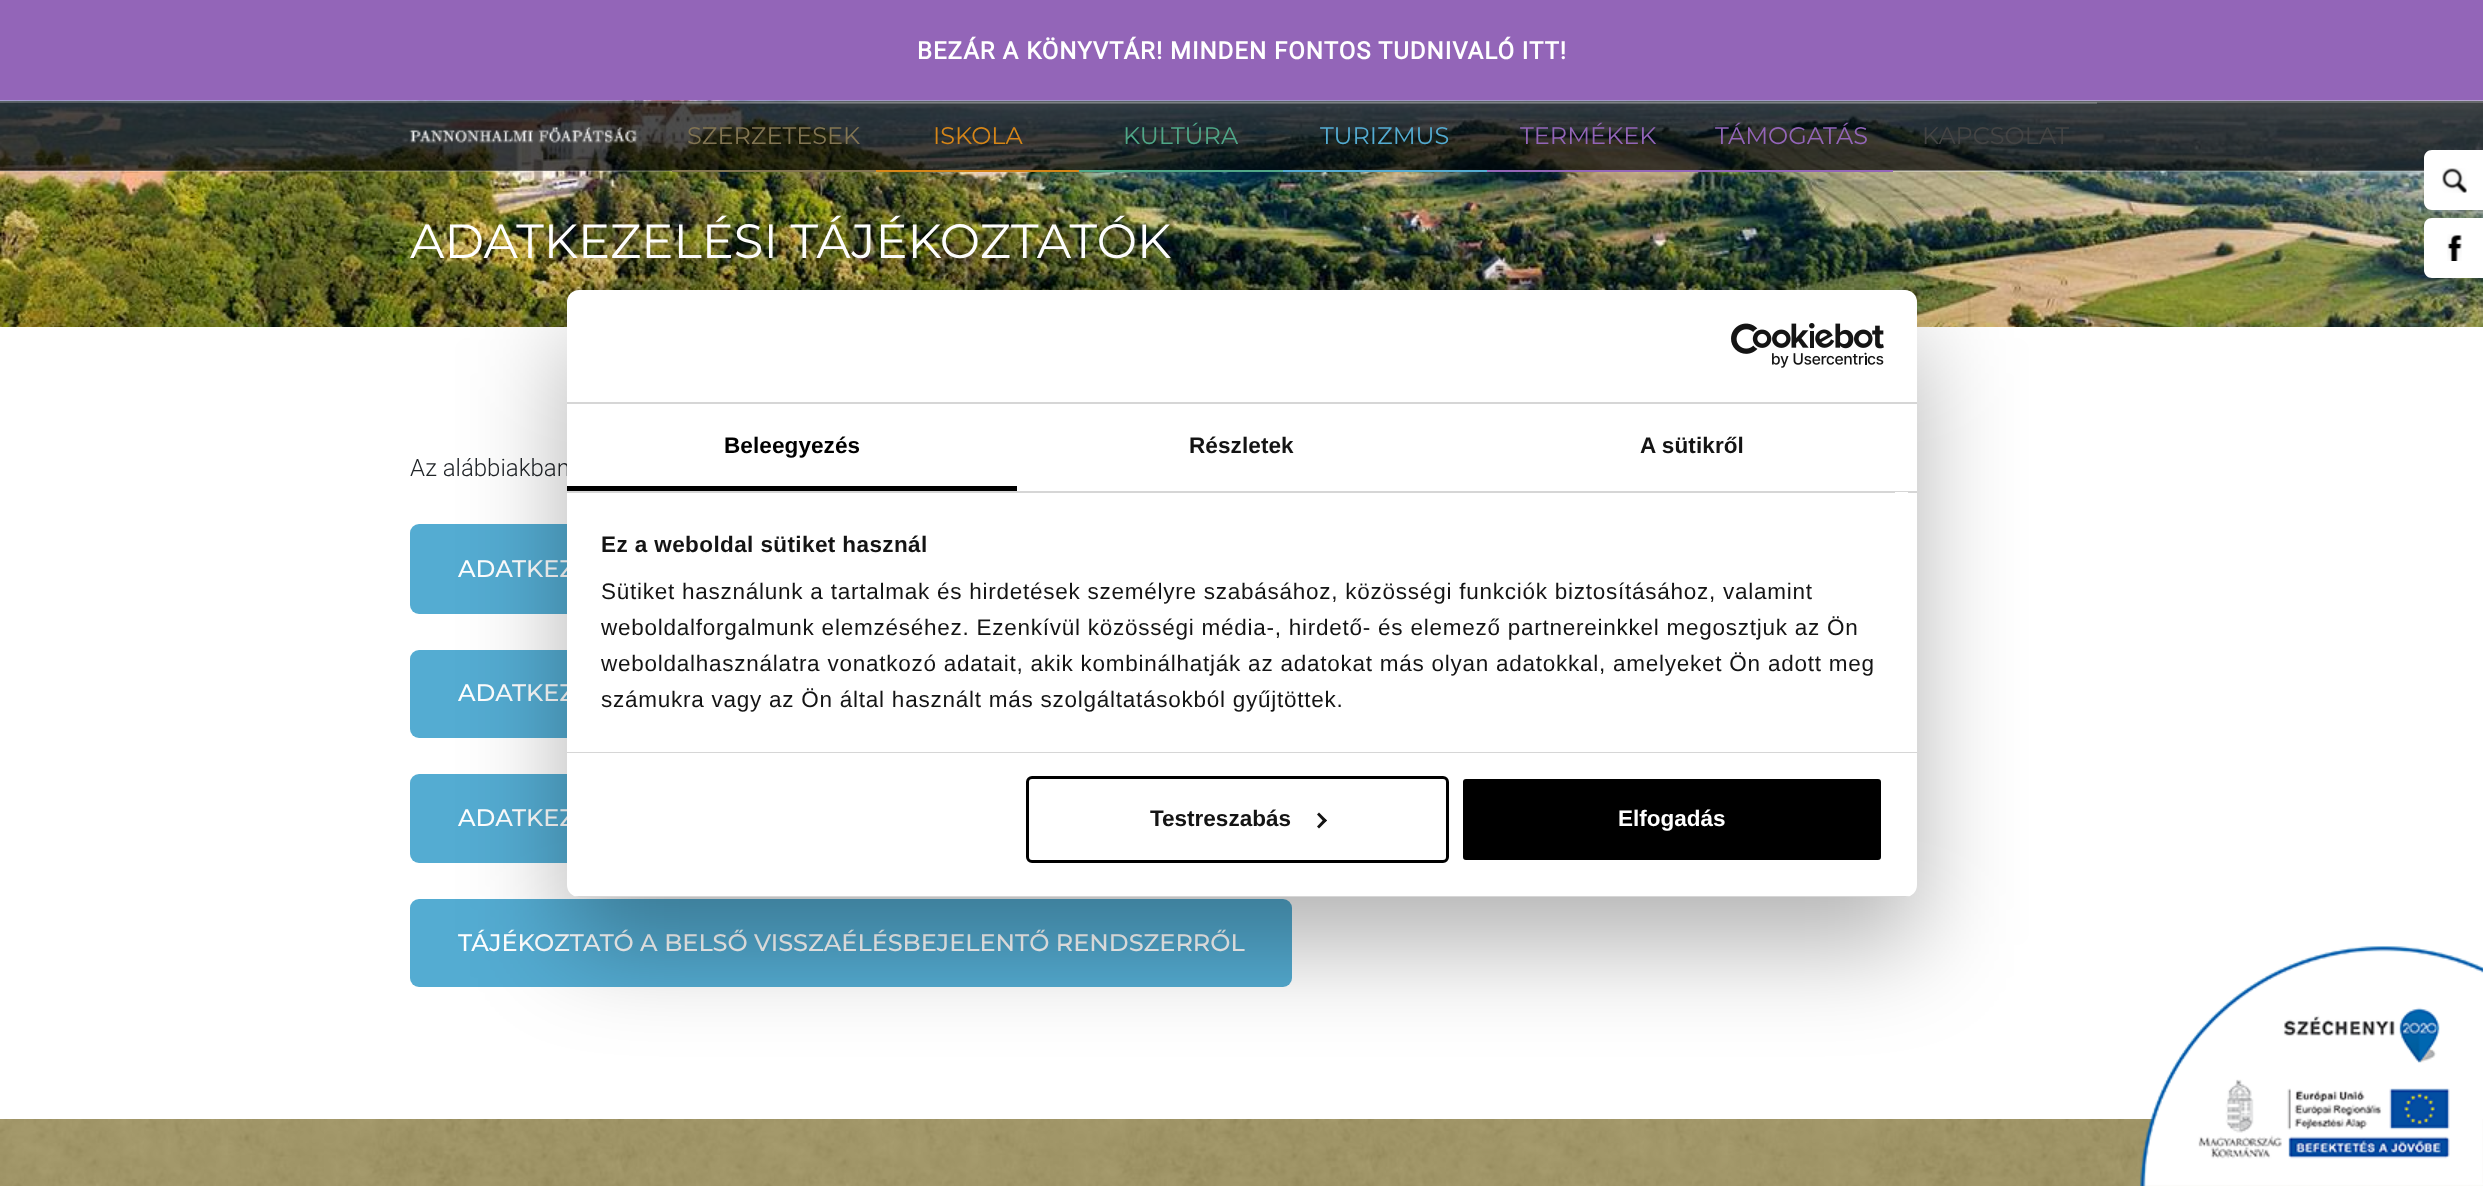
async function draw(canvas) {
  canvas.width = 2483
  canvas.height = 1186
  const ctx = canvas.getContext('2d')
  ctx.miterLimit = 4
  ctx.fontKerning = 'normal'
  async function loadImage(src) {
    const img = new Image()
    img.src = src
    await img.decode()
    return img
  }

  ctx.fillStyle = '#fff'
  ctx.fillRect(0, 0, 2483, 1186)
  ctx.fillStyle = '#9365b8'
  ctx.fillRect(0, 0, 2483, 101)
  ctx.letterSpacing = '1px'
  ctx.font = 'bold 24px Roboto'
  ctx.fillStyle = '#fff'
  ctx.fillText('BEZÁR A KÖNYVTÁR! MINDEN FONTOS TUDNIVALÓ ITT!', 917, 59)
  ctx.drawImage(await loadImage('image0.png'), 0, 100, 2483, 227)
  ctx.fillStyle = '#000000b3'
  ctx.fillRect(0, 101, 2483, 70)
  ctx.fillStyle = '#ffffff33'
  ctx.fillRect(0, 101, 2483, 2)
  ctx.fillRect(0, 170, 2424, 2)
  ctx.drawImage(await loadImage('image1.png'), 409, 127, 229, 16)
  ctx.fillRect(672, 102, 1425, 2)
  ctx.fillRect(1893, 170, 204, 2)
  ctx.fillStyle = '#827553'
  ctx.fillRect(672, 170, 204, 2)
  ctx.letterSpacing = '0px'
  ctx.font = '24px Montserrat'
  ctx.fillText('SZERZETESEK', 687, 144)
  ctx.fillStyle = '#d68618'
  ctx.fillRect(876, 170, 203, 2)
  ctx.fillText('ISKOLA', 933, 144)
  ctx.fillStyle = '#4fa787'
  ctx.fillRect(1079, 170, 204, 2)
  ctx.fillText('KULTÚRA', 1123, 144)
  ctx.fillStyle = '#54acd2'
  ctx.fillRect(1283, 170, 204, 2)
  ctx.fillText('TURIZMUS', 1320, 144)
  ctx.fillStyle = '#9365b8'
  ctx.fillRect(1487, 170, 406, 2)
  ctx.fillText('TERMÉKEK', 1520, 144)
  ctx.fillText('TÁMOGATÁS', 1715, 144)
  ctx.fillStyle = '#444'
  ctx.fillText('KAPCSOLAT', 1922, 144)
  ctx.fillStyle = '#fff'
  ctx.beginPath()
  ctx.moveTo(2432, 150)
  ctx.lineTo(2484, 150)
  ctx.lineTo(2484, 210)
  ctx.lineTo(2432, 210)
  ctx.bezierCurveTo(2427.5, 210, 2424, 206.5, 2424, 202)
  ctx.lineTo(2424, 158)
  ctx.bezierCurveTo(2424, 153.5, 2427.5, 150, 2432, 150)
  ctx.closePath()
  ctx.fill()
  ctx.drawImage(await loadImage('image2.png'), 2442, 168, 25, 25)
  ctx.font = '48px Montserrat'
  ctx.fillText('ADATKEZELÉSI TÁJÉKOZTATÓK', 410, 258)
  ctx.beginPath()
  ctx.moveTo(2432, 218)
  ctx.lineTo(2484, 218)
  ctx.lineTo(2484, 278)
  ctx.lineTo(2432, 278)
  ctx.bezierCurveTo(2427.5, 278, 2424, 274.5, 2424, 270)
  ctx.lineTo(2424, 226)
  ctx.bezierCurveTo(2424, 221.5, 2427.5, 218, 2432, 218)
  ctx.closePath()
  ctx.fill()
  ctx.drawImage(await loadImage('image3.png'), 2447, 234, 15, 27)
  ctx.font = '300 24px Roboto'
  ctx.fillStyle = '#212529'
  ctx.fillText('Az alábbiakban', 410, 476)
  ctx.fillStyle = '#54acd2'
  ctx.beginPath()
  ctx.roundRect(410, 524, 1272, 90, 9)
  ctx.fill()
  ctx.font = '500 24px Montserrat'
  ctx.fillStyle = '#fff'
  ctx.fillText('ADATKEZ', 458, 577)
  ctx.fillStyle = '#54acd2'
  ctx.beginPath()
  ctx.roundRect(410, 650, 463, 88, 9)
  ctx.fill()
  ctx.fillStyle = '#fff'
  ctx.fillText('ADATKEZ', 458, 701)
  ctx.fillStyle = '#54acd2'
  ctx.beginPath()
  ctx.roundRect(410, 774, 1251, 89, 9)
  ctx.fill()
  ctx.fillStyle = '#fff'
  ctx.fillText('ADATKEZ', 458, 826)
  ctx.fillStyle = '#54acd2'
  ctx.beginPath()
  ctx.roundRect(410, 899, 882, 88, 9)
  ctx.fill()
  ctx.fillStyle = '#fff'
  ctx.fillText('TÁJÉKOZTATÓ A BELSŐ VISSZAÉLÉSBEJELENTŐ RENDSZERRŐL', 458, 951)
  ctx.drawImage(await loadImage('image4.png'), 0, 1119, 2483, 67)
  ctx.drawImage(await loadImage('image5.png'), 2140, 946, 343, 240)
  ctx.fillStyle = '#0000004d'
  ctx.filter = 'blur(51px)'
  ctx.beginPath()
  ctx.roundRect(567, 338, 1350, 607, 12)
  ctx.fill()
  ctx.filter = 'none'
  ctx.fillStyle = '#fff'
  ctx.beginPath()
  ctx.roundRect(567, 290, 1350, 607, 12)
  ctx.fill()
  ctx.fillStyle = '#d6d6d6'
  ctx.fillRect(567, 402, 1350, 2)
  ctx.drawImage(await loadImage('image6.png'), 1731, 323, 153, 45)
  ctx.fillRect(567, 491, 1350, 2)
  ctx.fillStyle = '#000'
  ctx.fillRect(567, 486, 450, 5)
  ctx.letterSpacing = '0.1px'
  ctx.font = 'bold 22.5px Liberation Sans'
  ctx.fillText('Beleegyezés', 724, 453)
  ctx.fillStyle = '#141414'
  ctx.fillText('Részletek', 1189, 453)
  ctx.fillText('A sütikről', 1640, 453)
  ctx.fillStyle = '#d6d6d6'
  ctx.fillRect(567, 752, 1350, 1)
  ctx.fillStyle = '#fff'
  ctx.fillRect(1895, 492, 13, 1)
  ctx.letterSpacing = '0.4px'
  ctx.fillStyle = '#141414'
  ctx.fillText('Ez a weboldal sütiket használ', 601, 552)
  ctx.letterSpacing = '0.75px'
  ctx.font = '22.5px Liberation Sans'
  ctx.fillText('Sütiket használunk a tartalmak és hirdetések személyre szabásához, közösségi funkciók biztosításához, valamint', 601, 599)
  ctx.fillText('weboldalforgalmunk elemzéséhez. Ezenkívül közösségi média-, hirdető- és elemező partnereinkkel megosztjuk az Ön', 601, 635)
  ctx.fillText('weboldalhasználatra vonatkozó adatait, akik kombinálhatják az adatokat más olyan adatokkal, amelyeket Ön adott meg', 601, 671)
  ctx.fillText('számukra vagy az Ön által használt más szolgáltatásokból gyűjtöttek.', 601, 707)
  ctx.save()
  ctx.beginPath()
  ctx.roundRect(567, 290, 1350, 607, 12)
  ctx.clip()
  ctx.fillStyle = '#d6d6d6'
  ctx.fillRect(567, 896, 1350, 1)
  ctx.restore()
  ctx.beginPath()
  ctx.roundRect(1027.5, 777.5, 420, 84, 4.5)
  ctx.strokeStyle = '#000'
  ctx.lineWidth = 3
  ctx.stroke()
  ctx.letterSpacing = '0px'
  ctx.font = 'bold 22.5px Liberation Sans'
  ctx.fillText('Testreszabás', 1150, 826)
  ctx.beginPath()
  ctx.moveTo(1319, 812.5)
  ctx.lineTo(1327, 820.5)
  ctx.lineTo(1324.5, 822.5)
  ctx.lineTo(1317, 814.5)
  ctx.closePath()
  ctx.fill()
  ctx.beginPath()
  ctx.moveTo(1324.5, 818.5)
  ctx.lineTo(1327, 820.5)
  ctx.lineTo(1319, 828.5)
  ctx.lineTo(1317, 826.5)
  ctx.closePath()
  ctx.fill()
  ctx.fillStyle = '#000'
  ctx.beginPath()
  ctx.roundRect(1461.5, 777.5, 421, 84, 4.5)
  ctx.fill()
  ctx.strokeStyle = '#fff'
  ctx.stroke()
  ctx.fillStyle = '#fff'
  ctx.fillText('Elfogadás', 1618, 826)
}

draw(document.querySelector('canvas'))
